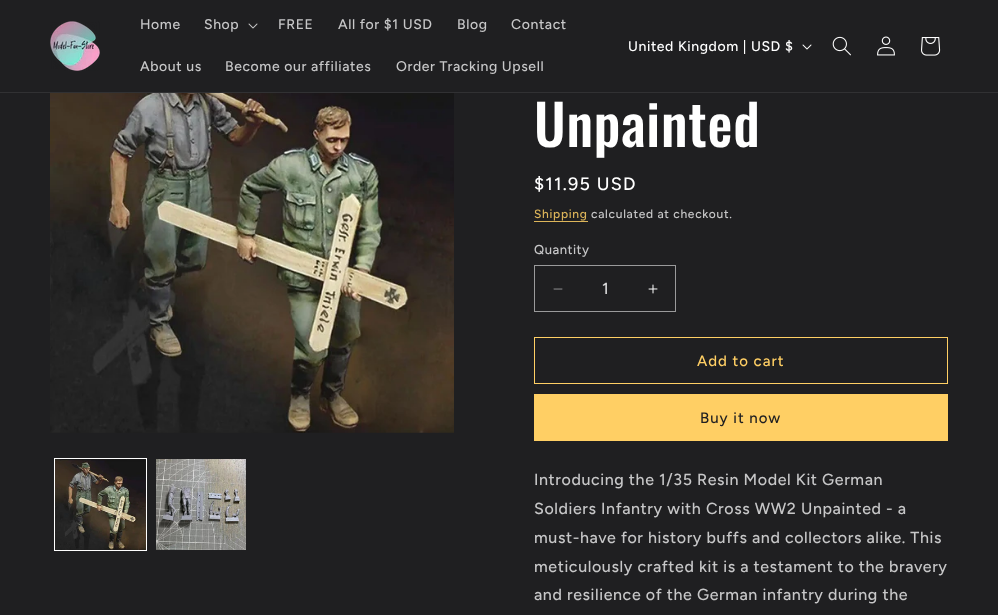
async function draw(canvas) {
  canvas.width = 998
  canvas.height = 615
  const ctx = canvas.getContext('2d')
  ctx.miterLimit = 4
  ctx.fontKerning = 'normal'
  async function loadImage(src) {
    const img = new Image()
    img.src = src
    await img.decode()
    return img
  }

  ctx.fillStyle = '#1f1f21'
  ctx.fillRect(0, 0, 998, 615)
  ctx.fillStyle = '#313133'
  ctx.fillRect(0, 92, 998, 1)
  ctx.drawImage(await loadImage('image0.png'), 50, 21, 50, 50)
  ctx.letterSpacing = '0.6px'
  ctx.font = '500 14px Figtree'
  ctx.fillStyle = '#c7c7c8'
  ctx.fillText('Home', 140, 29)
  ctx.fillText('Shop', 204, 29)
  ctx.drawImage(await loadImage('image1.png'), 248, 23, 10, 6)
  ctx.fillText('FREE', 278, 29)
  ctx.fillText('All for $1 USD', 338, 29)
  ctx.fillText('Blog', 457, 29)
  ctx.fillText('Contact', 511, 29)
  ctx.fillText('About us', 140, 71)
  ctx.fillText('Become our affiliates', 225, 71)
  ctx.fillText('Order Tracking Upsell', 396, 71)
  ctx.fillStyle = '#fff'
  ctx.fillText('United Kingdom | USD $', 628, 51)
  ctx.drawImage(await loadImage('image2.png'), 802, 44, 10, 6)
  ctx.drawImage(await loadImage('image3.png'), 832, 36, 19, 20)
  ctx.drawImage(await loadImage('image4.png'), 877, 36, 18, 20)
  ctx.drawImage(await loadImage('image5.png'), 921, 37, 20, 19)
  ctx.drawImage(await loadImage('image6.png'), 50, 93, 404, 340)
  ctx.strokeStyle = '#fff'
  ctx.strokeRect(54.5, 458.5, 92, 92)
  ctx.drawImage(await loadImage('image7.png'), 55, 459, 91, 91)
  ctx.drawImage(await loadImage('image8.png'), 156, 459, 90, 91)
  ctx.letterSpacing = '0.75px'
  ctx.font = '500 56px Oswald'
  ctx.fillText('Unpainted', 534, 147)
  ctx.letterSpacing = '1.25px'
  ctx.font = '500 18px Figtree'
  ctx.fillText('$11.95 USD', 534, 190)
  ctx.letterSpacing = '0.7px'
  ctx.font = '500 12px Figtree'
  ctx.fillStyle = '#ddb55a'
  ctx.fillText('Shipping', 534, 218)
  ctx.fillRect(534, 221, 54, 1)
  ctx.fillStyle = '#c7c7c8'
  ctx.fillText('calculated at checkout.', 591, 218)
  ctx.letterSpacing = '0.5px'
  ctx.font = '500 13px Figtree'
  ctx.fillText('Quantity', 534, 254)
  ctx.drawImage(await loadImage('image9.png'), 553, 288, 10, 2)
  ctx.drawImage(await loadImage('image10.png'), 648, 284, 10, 10)
  ctx.strokeStyle = '#9a9a9b'
  ctx.strokeRect(534.5, 265.5, 141, 46)
  ctx.letterSpacing = '0px'
  ctx.font = '500 16px Figtree'
  ctx.fillStyle = '#ddddde'
  ctx.fillText('1', 602, 294)
  ctx.strokeStyle = '#ffcf64'
  ctx.strokeRect(534.5, 337.5, 413, 46)
  ctx.letterSpacing = '1px'
  ctx.font = '500 15px Figtree'
  ctx.fillStyle = '#ffcf64'
  ctx.fillText('Add to cart', 697, 366)
  ctx.fillRect(534, 394, 414, 47)
  ctx.fillStyle = '#1f1f21'
  ctx.fillText('Buy it now', 700, 423)
  ctx.letterSpacing = '0.6px'
  ctx.font = '500 16px Figtree'
  ctx.fillStyle = '#c7c7c8'
  ctx.fillText('Introducing the 1/35 Resin Model Kit German', 534, 485)
  ctx.fillText('Soldiers Infantry with Cross WW2 Unpainted - a', 534, 514)
  ctx.fillText('must-have for history buffs and collectors alike. This', 534, 543)
  ctx.fillText('meticulously crafted kit is a testament to the bravery', 534, 572)
  ctx.fillText('and resilience of the German infantry during the', 534, 600)
}

draw(document.querySelector('canvas'))
